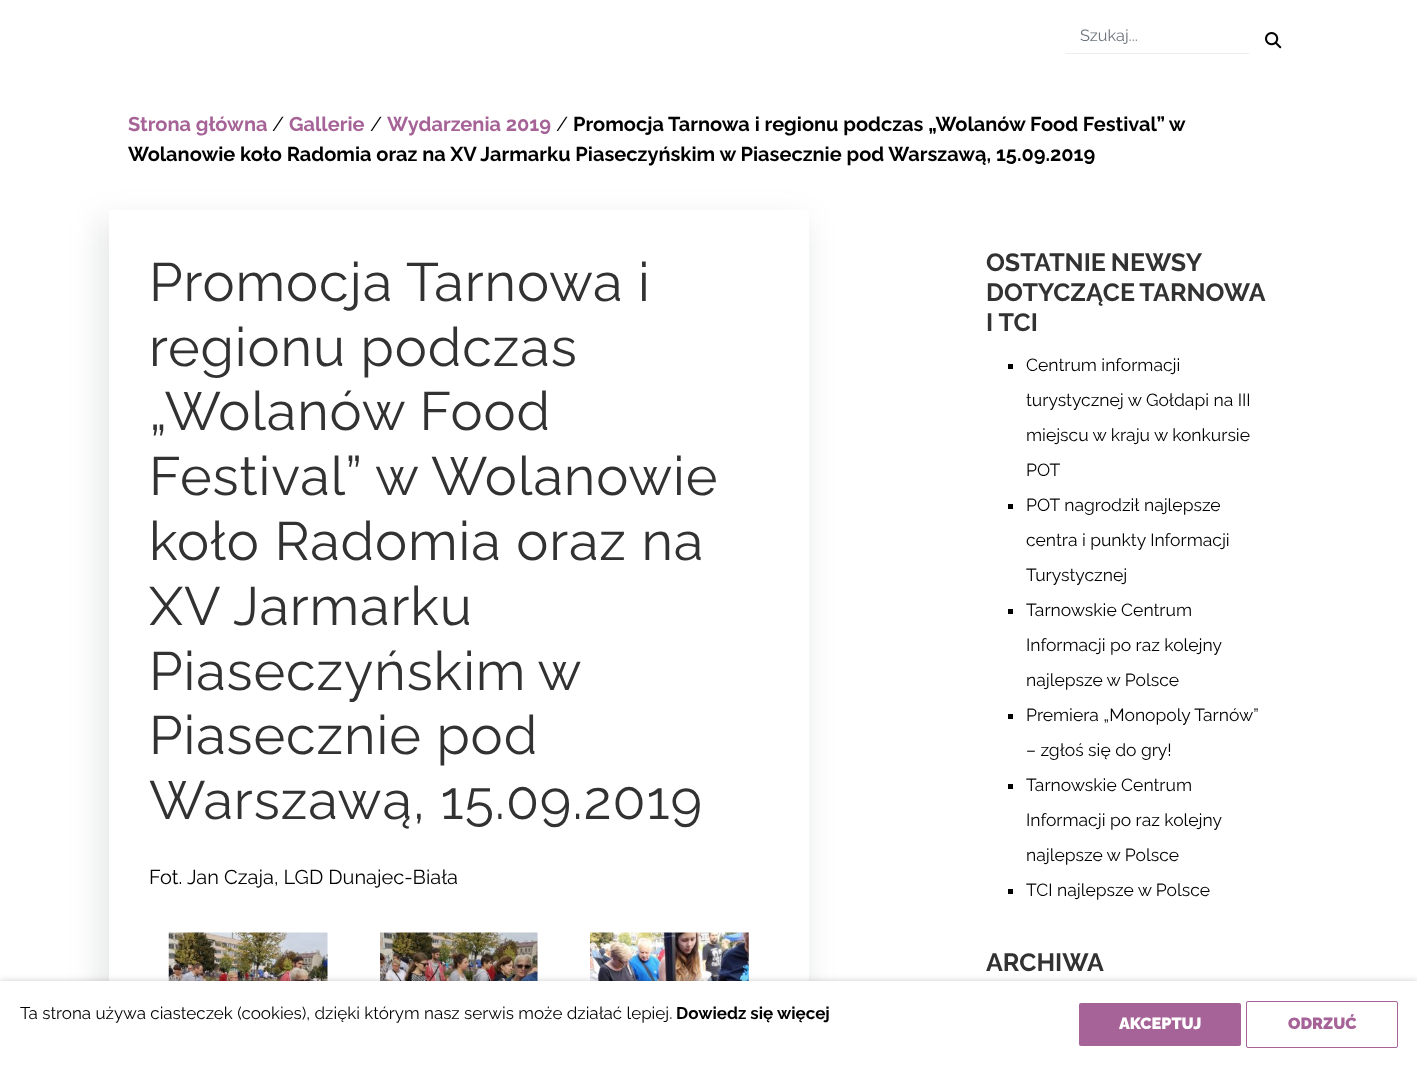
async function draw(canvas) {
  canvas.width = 1417
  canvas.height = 1067
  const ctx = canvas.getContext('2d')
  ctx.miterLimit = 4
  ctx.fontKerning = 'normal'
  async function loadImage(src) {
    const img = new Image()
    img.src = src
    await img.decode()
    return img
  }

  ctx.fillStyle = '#fff'
  ctx.fillRect(0, 0, 1417, 1067)
  ctx.fillStyle = '#ecedee'
  ctx.fillRect(1065, 53, 184, 1)
  ctx.font = '16.25px Raleway'
  ctx.fillStyle = '#6c757d'
  ctx.fillText('Szukaj...', 1080, 41)
  ctx.drawImage(await loadImage('image0.png'), 1265, 32, 17, 17)
  ctx.font = 'bold 20px Raleway'
  ctx.fillStyle = '#a66397'
  ctx.fillText('Strona główna', 128, 131)
  ctx.font = '20px Raleway'
  ctx.fillStyle = '#000'
  ctx.fillText('/', 272, 131)
  ctx.font = 'bold 20px Raleway'
  ctx.fillStyle = '#a66397'
  ctx.fillText('Gallerie', 289, 131)
  ctx.font = '20px Raleway'
  ctx.fillStyle = '#000'
  ctx.fillText('/', 370, 131)
  ctx.font = 'bold 20px Raleway'
  ctx.fillStyle = '#a66397'
  ctx.fillText('Wydarzenia 2019', 387, 131)
  ctx.font = '20px Raleway'
  ctx.fillStyle = '#000'
  ctx.fillText('/', 556, 131)
  ctx.font = 'bold 20px Raleway'
  ctx.fillText('Promocja Tarnowa i regionu podczas „Wolanów Food Festival” w', 573, 131)
  ctx.fillText('Wolanowie koło Radomia oraz na XV Jarmarku Piaseczyńskim w Piasecznie pod Warszawą, 15.09.2019', 128, 161)
  ctx.save()
  ctx.beginPath()
  ctx.moveTo(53, 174)
  ctx.lineTo(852, 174)
  ctx.lineTo(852, 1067)
  ctx.lineTo(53, 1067)
  ctx.closePath()
  ctx.moveTo(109, 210)
  ctx.lineTo(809, 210)
  ctx.lineTo(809, 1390)
  ctx.lineTo(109, 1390)
  ctx.closePath()
  ctx.clip('evenodd')
  ctx.fillStyle = '#545f6526'
  ctx.filter = 'blur(15px)'
  ctx.beginPath()
  ctx.rect(99, 220, 707, 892)
  ctx.fill()
  ctx.filter = 'none'
  ctx.restore()
  ctx.letterSpacing = '0.9px'
  ctx.font = '54px Raleway'
  ctx.fillStyle = '#323232'
  ctx.fillText('Promocja Tarnowa i', 149, 301)
  ctx.fillText('regionu podczas', 149, 366)
  ctx.fillText('„Wolanów Food', 149, 430)
  ctx.fillText('Festival” w Wolanowie', 149, 495)
  ctx.fillText('koło Radomia oraz na', 149, 560)
  ctx.fillText('XV Jarmarku', 149, 625)
  ctx.wordSpacing = '-2px'
  ctx.fillText('Piaseczyńskim w', 149, 690)
  ctx.wordSpacing = '0px'
  ctx.fillText('Piasecznie pod', 149, 754)
  ctx.fillText('Warszawą, 15.09.2019', 149, 819)
  ctx.letterSpacing = '0px'
  ctx.font = '20px Raleway'
  ctx.fillStyle = '#000'
  ctx.fillText('Fot. Jan Czaja, LGD Dunajec-Biała', 149, 884)
  ctx.drawImage(await loadImage('image1.png'), 168, 932, 160, 49)
  ctx.drawImage(await loadImage('image2.png'), 380, 932, 158, 49)
  ctx.drawImage(await loadImage('image3.png'), 590, 932, 159, 49)
  ctx.wordSpacing = '-1px'
  ctx.font = 'bold 25px Raleway'
  ctx.fillStyle = '#323232'
  ctx.fillText('OSTATNIE NEWSY', 986, 271)
  ctx.fillText('DOTYCZĄCE TARNOWA', 986, 301)
  ctx.wordSpacing = '0px'
  ctx.fillText('I TCI', 986, 331)
  ctx.fillStyle = '#000'
  ctx.fillRect(1008, 364, 5, 5)
  ctx.font = '17.5px Raleway'
  ctx.fillText('Centrum informacji', 1026, 371)
  ctx.fillText('turystycznej w Gołdapi na III', 1026, 406)
  ctx.fillText('miejscu w kraju w konkursie', 1026, 441)
  ctx.fillText('POT', 1026, 476)
  ctx.fillRect(1008, 504, 5, 5)
  ctx.fillText('POT nagrodził najlepsze', 1026, 511)
  ctx.fillText('centra i punkty Informacji', 1026, 546)
  ctx.fillText('Turystycznej', 1026, 581)
  ctx.fillRect(1008, 609, 5, 5)
  ctx.fillText('Tarnowskie Centrum', 1026, 616)
  ctx.fillText('Informacji po raz kolejny', 1026, 651)
  ctx.fillText('najlepsze w Polsce', 1026, 686)
  ctx.fillRect(1008, 714, 5, 5)
  ctx.fillText('Premiera „Monopoly Tarnów”', 1026, 721)
  ctx.fillText('– zgłoś się do gry!', 1026, 756)
  ctx.fillRect(1008, 784, 5, 5)
  ctx.fillText('Tarnowskie Centrum', 1026, 791)
  ctx.fillText('Informacji po raz kolejny', 1026, 826)
  ctx.fillText('najlepsze w Polsce', 1026, 861)
  ctx.fillRect(1008, 889, 5, 5)
  ctx.fillText('TCI najlepsze w Polsce', 1026, 896)
  ctx.font = 'bold 25px Raleway'
  ctx.fillStyle = '#323232'
  ctx.fillText('ARCHIWA', 986, 971)
  ctx.fillStyle = '#00000033'
  ctx.filter = 'blur(3px)'
  ctx.beginPath()
  ctx.rect(0, 981, 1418, 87)
  ctx.fill()
  ctx.filter = 'none'
  ctx.fillStyle = '#fff'
  ctx.fillRect(0, 981, 1417, 86)
  ctx.font = '17px Raleway'
  ctx.fillStyle = '#000'
  ctx.fillText('Ta strona używa ciasteczek (cookies), dzięki którym nasz serwis może działać lepiej.', 20, 1019)
  ctx.font = 'bold 17px Raleway'
  ctx.fillText('Dowiedz się więcej', 676, 1019)
  ctx.fillStyle = '#a66397'
  ctx.beginPath()
  ctx.roundRect(1079, 1003, 162, 43, 2)
  ctx.fill()
  ctx.font = '900 16.25px Raleway'
  ctx.fillStyle = '#fff'
  ctx.fillText('AKCEPTUJ', 1119, 1029)
  ctx.beginPath()
  ctx.roundRect(1246.5, 1001.5, 151, 46, 1.5)
  ctx.strokeStyle = '#a66397'
  ctx.stroke()
  ctx.fillStyle = '#a66397'
  ctx.fillText('ODRZUĆ', 1288, 1029)
}

draw(document.querySelector('canvas'))
